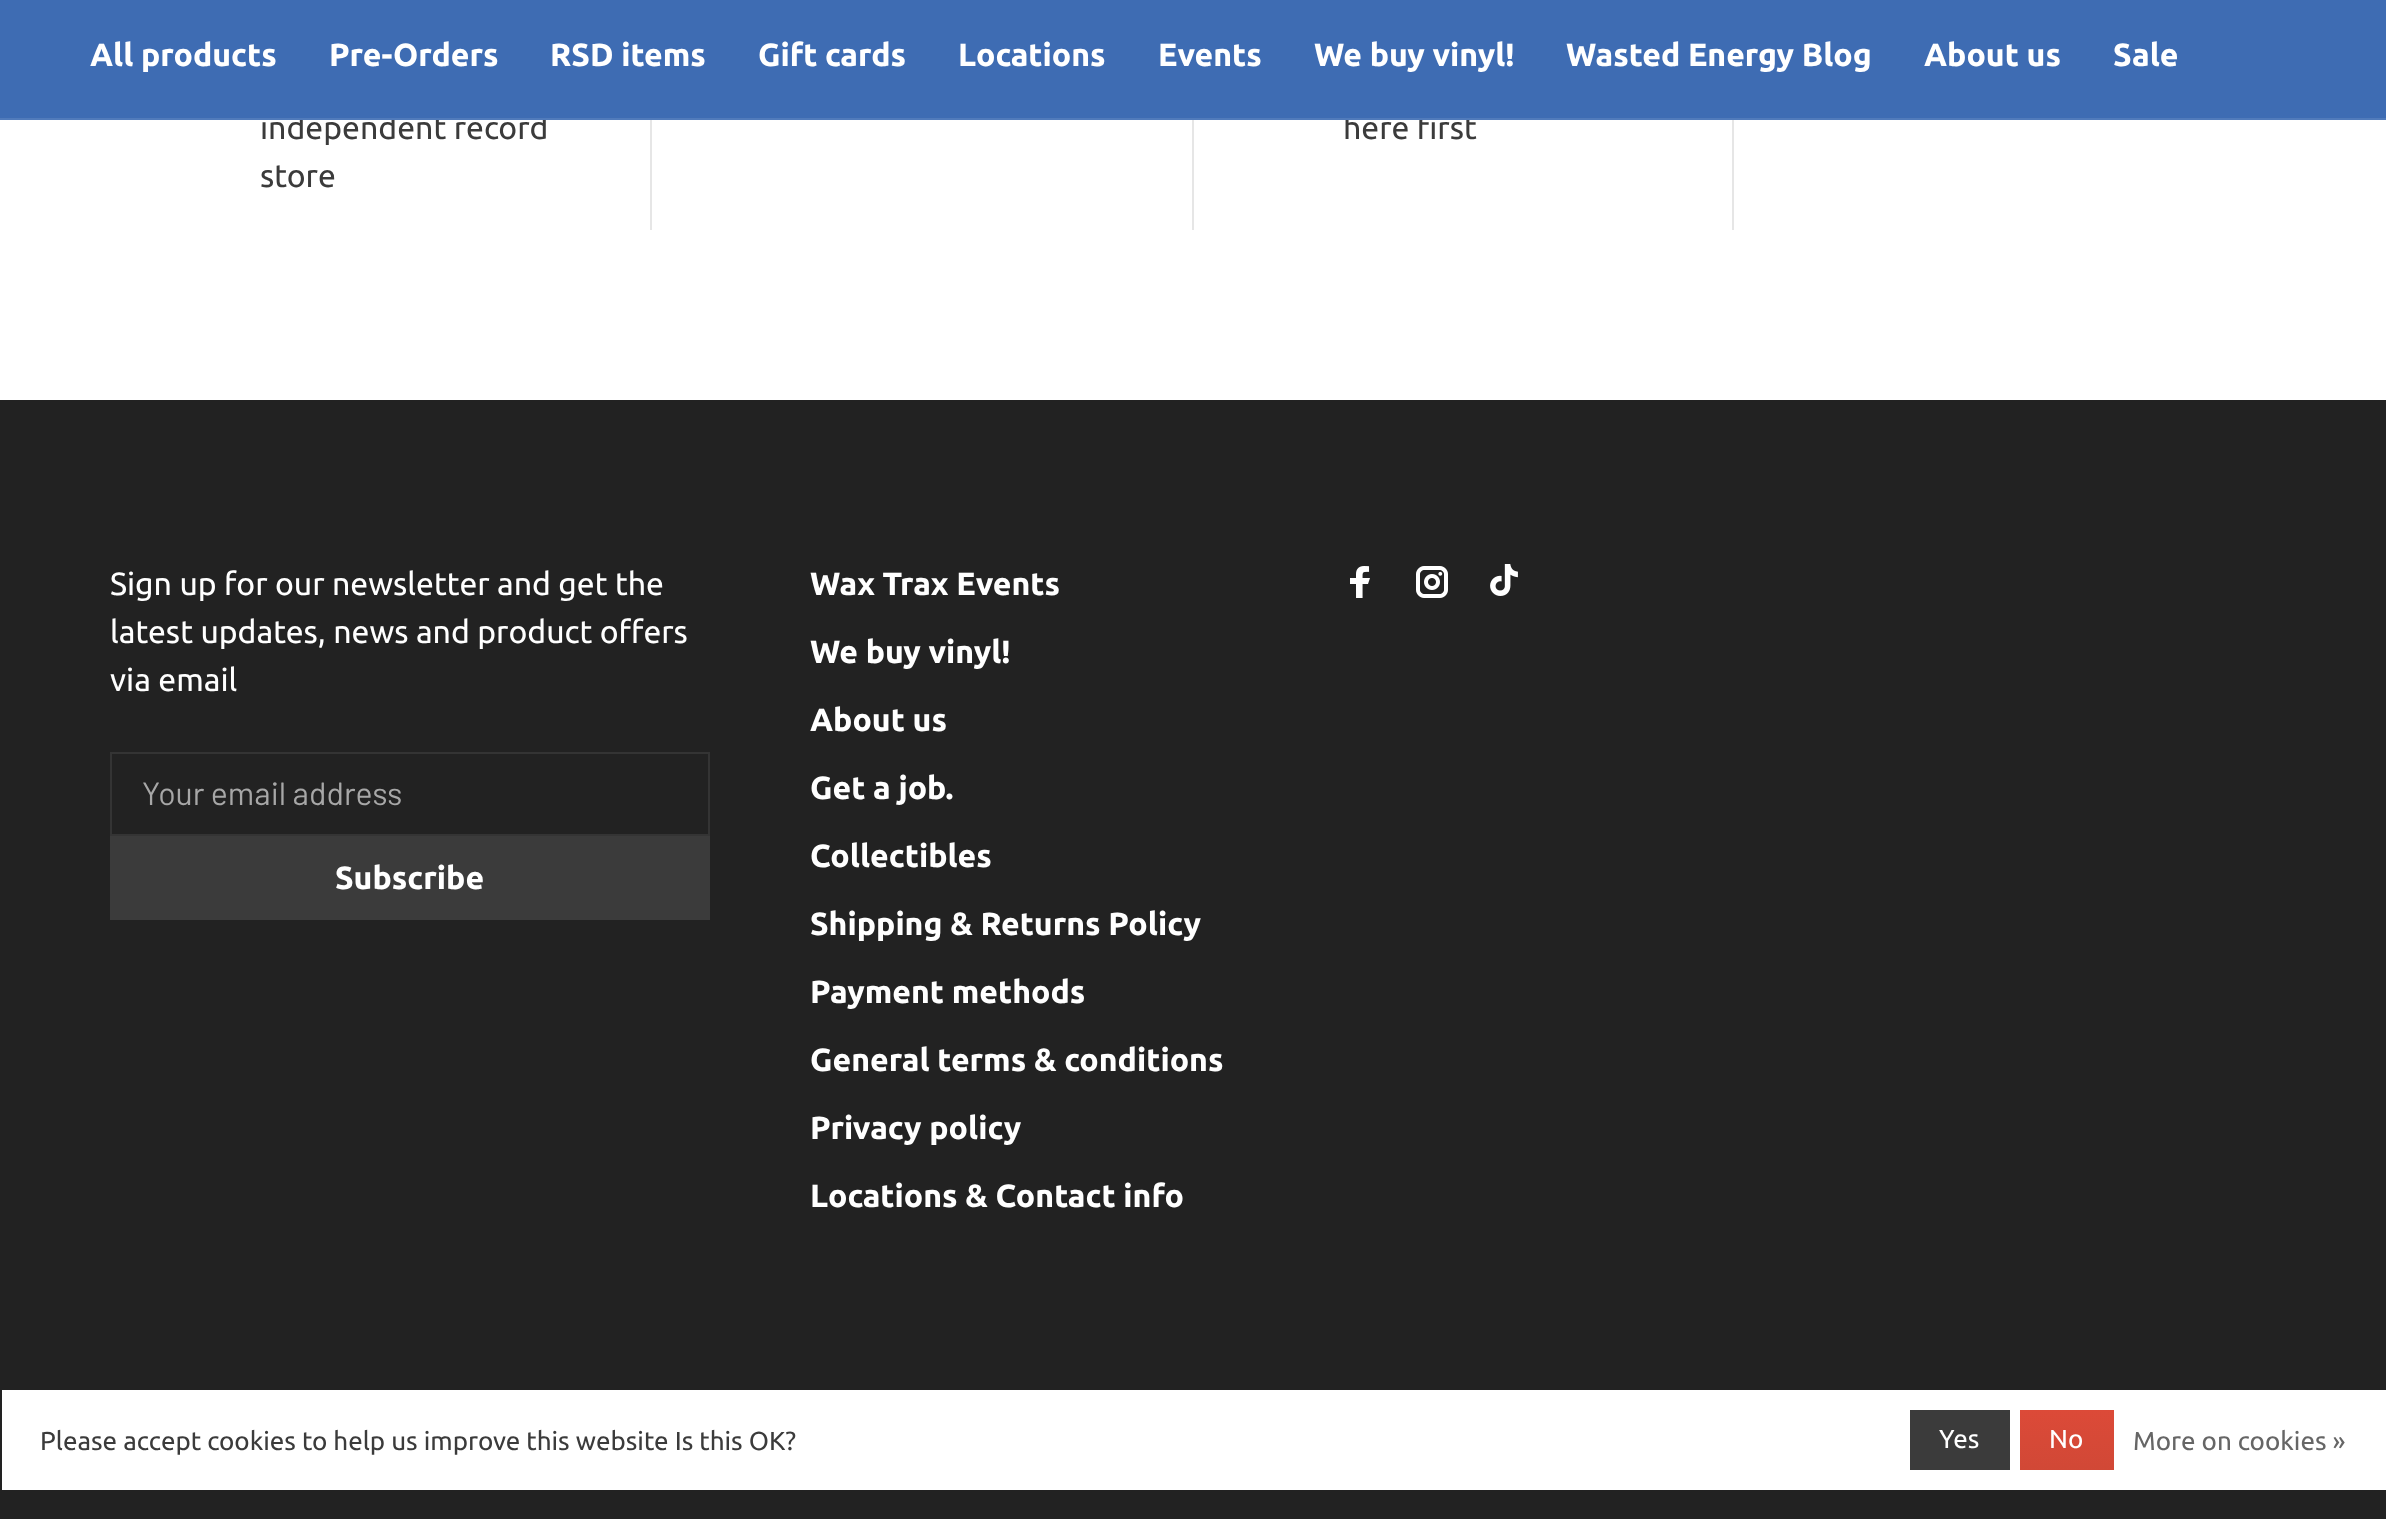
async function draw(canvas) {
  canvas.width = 2386
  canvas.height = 1519
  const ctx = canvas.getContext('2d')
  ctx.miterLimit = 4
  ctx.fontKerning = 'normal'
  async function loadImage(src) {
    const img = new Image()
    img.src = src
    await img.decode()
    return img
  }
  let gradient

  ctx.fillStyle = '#fff'
  ctx.fillRect(0, 0, 2386, 1519)
  ctx.font = '32px Ubuntu'
  ctx.fillStyle = '#3b3b3b'
  ctx.fillText('independent record', 260, 139)
  ctx.fillText('here first', 1343, 139)
  ctx.fillStyle = '#3e6cb3'
  ctx.fillRect(0, 0, 2386, 118)
  ctx.fillStyle = '#517bbb'
  ctx.fillRect(0, 118, 2386, 2)
  ctx.font = 'bold 32px Ubuntu'
  ctx.fillStyle = '#fff'
  ctx.fillText('All products', 90, 66)
  ctx.fillText('Pre-Orders', 329, 66)
  ctx.fillText('RSD items', 550, 66)
  ctx.fillText('Gift cards', 758, 66)
  ctx.fillText('Locations', 958, 66)
  ctx.fillText('Events', 1158, 66)
  ctx.fillText('We buy vinyl!', 1314, 66)
  ctx.fillText('Wasted Energy Blog', 1566, 66)
  ctx.fillText('About us', 1924, 66)
  ctx.fillText('Sale', 2113, 66)
  ctx.font = '32px Ubuntu'
  ctx.fillStyle = '#3b3b3b'
  ctx.fillText('store', 260, 187)
  ctx.fillStyle = '#e6e6e6'
  ctx.fillRect(650, 120, 2, 110)
  ctx.fillRect(1192, 120, 2, 110)
  ctx.fillRect(1732, 120, 2, 110)
  ctx.fillStyle = '#222'
  ctx.fillRect(0, 400, 2386, 1119)
  ctx.fillStyle = '#fff'
  ctx.fillText('Sign up for our newsletter and get the', 110, 595)
  ctx.fillText('latest updates, news and product offers', 110, 643)
  ctx.fillText('via email', 110, 691)
  ctx.strokeStyle = '#343434'
  ctx.lineWidth = 2
  ctx.strokeRect(111, 753, 598, 82)
  ctx.font = '32px Barlow'
  ctx.fillStyle = '#a7a7a7'
  ctx.fillText('Your email address', 142, 805)
  ctx.fillStyle = '#3b3b3b'
  ctx.fillRect(110, 836, 600, 84)
  ctx.font = 'bold 32px Ubuntu'
  ctx.fillStyle = '#fff'
  ctx.fillText('Subscribe', 335, 889)
  ctx.fillText('Wax Trax Events', 810, 595)
  ctx.fillText('We buy vinyl!', 810, 663)
  ctx.fillText('About us', 810, 731)
  ctx.fillText('Get a job.', 810, 799)
  ctx.fillText('Collectibles', 810, 867)
  ctx.fillText('Shipping & Returns Policy', 810, 935)
  ctx.fillText('Payment methods', 810, 1003)
  ctx.fillText('General terms & conditions', 810, 1071)
  ctx.fillText('Privacy policy', 810, 1139)
  ctx.fillText('Locations & Contact info', 810, 1207)
  ctx.drawImage(await loadImage('image0.png'), 1350, 566, 20, 32)
  ctx.drawImage(await loadImage('image1.png'), 1416, 566, 32, 32)
  ctx.drawImage(await loadImage('image2.png'), 1490, 564, 28, 32)
  ctx.fillRect(2, 1390, 2384, 100)
  ctx.font = '26px Ubuntu'
  ctx.fillStyle = '#3b3b3b'
  ctx.fillText('Please accept cookies to help us improve this website Is this OK?', 40, 1450)
  ctx.fillRect(1910, 1410, 100, 60)
  ctx.fillStyle = '#fff'
  ctx.fillText('Yes', 1939, 1448)
  gradient = ctx.createLinearGradient(2066, 1410, 2066, 1470)
  gradient.addColorStop(0, '#dc4a38')
  gradient.addColorStop(1, '#d14836')
  ctx.fillStyle = gradient
  ctx.fillRect(2020, 1410, 94, 60)
  ctx.fillStyle = '#fff'
  ctx.fillText('No', 2049, 1448)
  ctx.fillStyle = '#666'
  ctx.fillText('More on cookies »', 2133, 1450)
}

draw(document.querySelector('canvas'))
